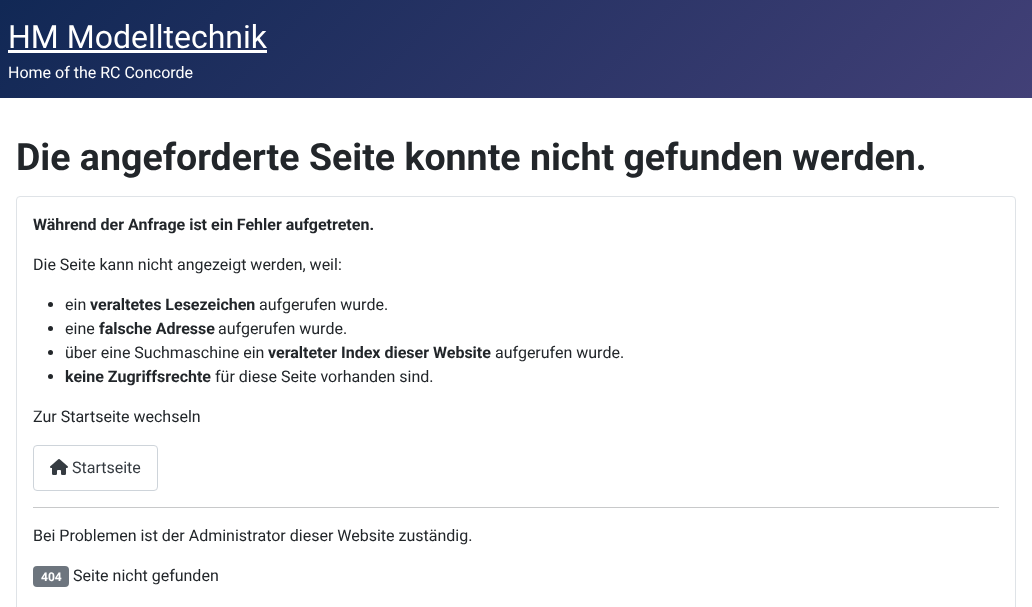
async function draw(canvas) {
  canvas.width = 1032
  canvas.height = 607
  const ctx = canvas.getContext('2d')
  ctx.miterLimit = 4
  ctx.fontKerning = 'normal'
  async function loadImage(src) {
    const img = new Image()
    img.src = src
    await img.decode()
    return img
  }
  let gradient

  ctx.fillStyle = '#fff'
  ctx.fillRect(0, 0, 1032, 607)
  gradient = ctx.createLinearGradient(233, -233, 799, 332)
  gradient.addColorStop(0, '#112855')
  gradient.addColorStop(1, '#424077')
  ctx.fillStyle = gradient
  ctx.fillRect(0, 0, 1032, 98)
  ctx.font = '32px Roboto'
  ctx.fillStyle = '#fff'
  ctx.fillText('HM Modelltechnik', 8, 48)
  ctx.fillRect(8, 50, 259, 3)
  ctx.font = '16px Roboto'
  ctx.fillText('Home of the RC Concorde', 8, 78)
  ctx.font = 'bold 37.5px Roboto'
  ctx.fillStyle = '#22262a'
  ctx.fillText('Die angeforderte Seite konnte nicht gefunden werden.', 16, 170)
  ctx.beginPath()
  ctx.roundRect(16.5, 196.5, 999, 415, 3.5)
  ctx.strokeStyle = '#dfe3e7'
  ctx.stroke()
  ctx.font = 'bold 16px Roboto'
  ctx.fillText('Während der Anfrage ist ein Fehler aufgetreten.', 33, 230)
  ctx.font = '16px Roboto'
  ctx.fillText('Die Seite kann nicht angezeigt werden, weil:', 33, 270)
  ctx.beginPath()
  ctx.arc(50.5, 304.5, 2.5, 0, 2 * Math.PI)
  ctx.fill()
  ctx.fillText('ein', 65, 310)
  ctx.font = 'bold 16px Roboto'
  ctx.fillText('veraltetes Lesezeichen', 90, 310)
  ctx.font = '16px Roboto'
  ctx.fillText('aufgerufen wurde.', 259, 310)
  ctx.beginPath()
  ctx.arc(50.5, 328.5, 2.5, 0, 2 * Math.PI)
  ctx.fill()
  ctx.fillText('eine', 65, 334)
  ctx.font = 'bold 16px Roboto'
  ctx.fillText('falsche Adresse', 99, 334)
  ctx.font = '16px Roboto'
  ctx.fillText('aufgerufen wurde.', 218, 334)
  ctx.beginPath()
  ctx.arc(50.5, 352.5, 2.5, 0, 2 * Math.PI)
  ctx.fill()
  ctx.fillText('über eine Suchmaschine ein', 65, 358)
  ctx.font = 'bold 16px Roboto'
  ctx.fillText('veralteter Index dieser Website', 268, 358)
  ctx.font = '16px Roboto'
  ctx.fillText('aufgerufen wurde.', 495, 358)
  ctx.beginPath()
  ctx.arc(50.5, 376.5, 2.5, 0, 2 * Math.PI)
  ctx.fill()
  ctx.font = 'bold 16px Roboto'
  ctx.fillText('keine Zugriffsrechte', 65, 382)
  ctx.font = '16px Roboto'
  ctx.fillText('für diese Seite vorhanden sind.', 215, 382)
  ctx.fillText('Zur Startseite wechseln', 33, 422)
  ctx.beginPath()
  ctx.roundRect(33.5, 445.5, 124, 45, 3.5)
  ctx.strokeStyle = '#ced4da'
  ctx.stroke()
  ctx.drawImage(await loadImage('image0.png'), 50, 459, 18, 16)
  ctx.fillStyle = '#353b41'
  ctx.fillText('Startseite', 72, 473)
  ctx.fillStyle = '#c8c9ca'
  ctx.fillRect(33, 507, 966, 1)
  ctx.fillStyle = '#22262a'
  ctx.fillText('Bei Problemen ist der Administrator dieser Website zuständig.', 33, 541)
  ctx.fillStyle = '#6d757e'
  ctx.beginPath()
  ctx.roundRect(33, 566, 36, 21, 4)
  ctx.fill()
  ctx.font = 'bold 12px Roboto'
  ctx.fillStyle = '#fff'
  ctx.fillText('404', 41, 581)
  ctx.font = '16px Roboto'
  ctx.fillStyle = '#22262a'
  ctx.fillText('Seite nicht gefunden', 73, 581)
}

draw(document.querySelector('canvas'))
